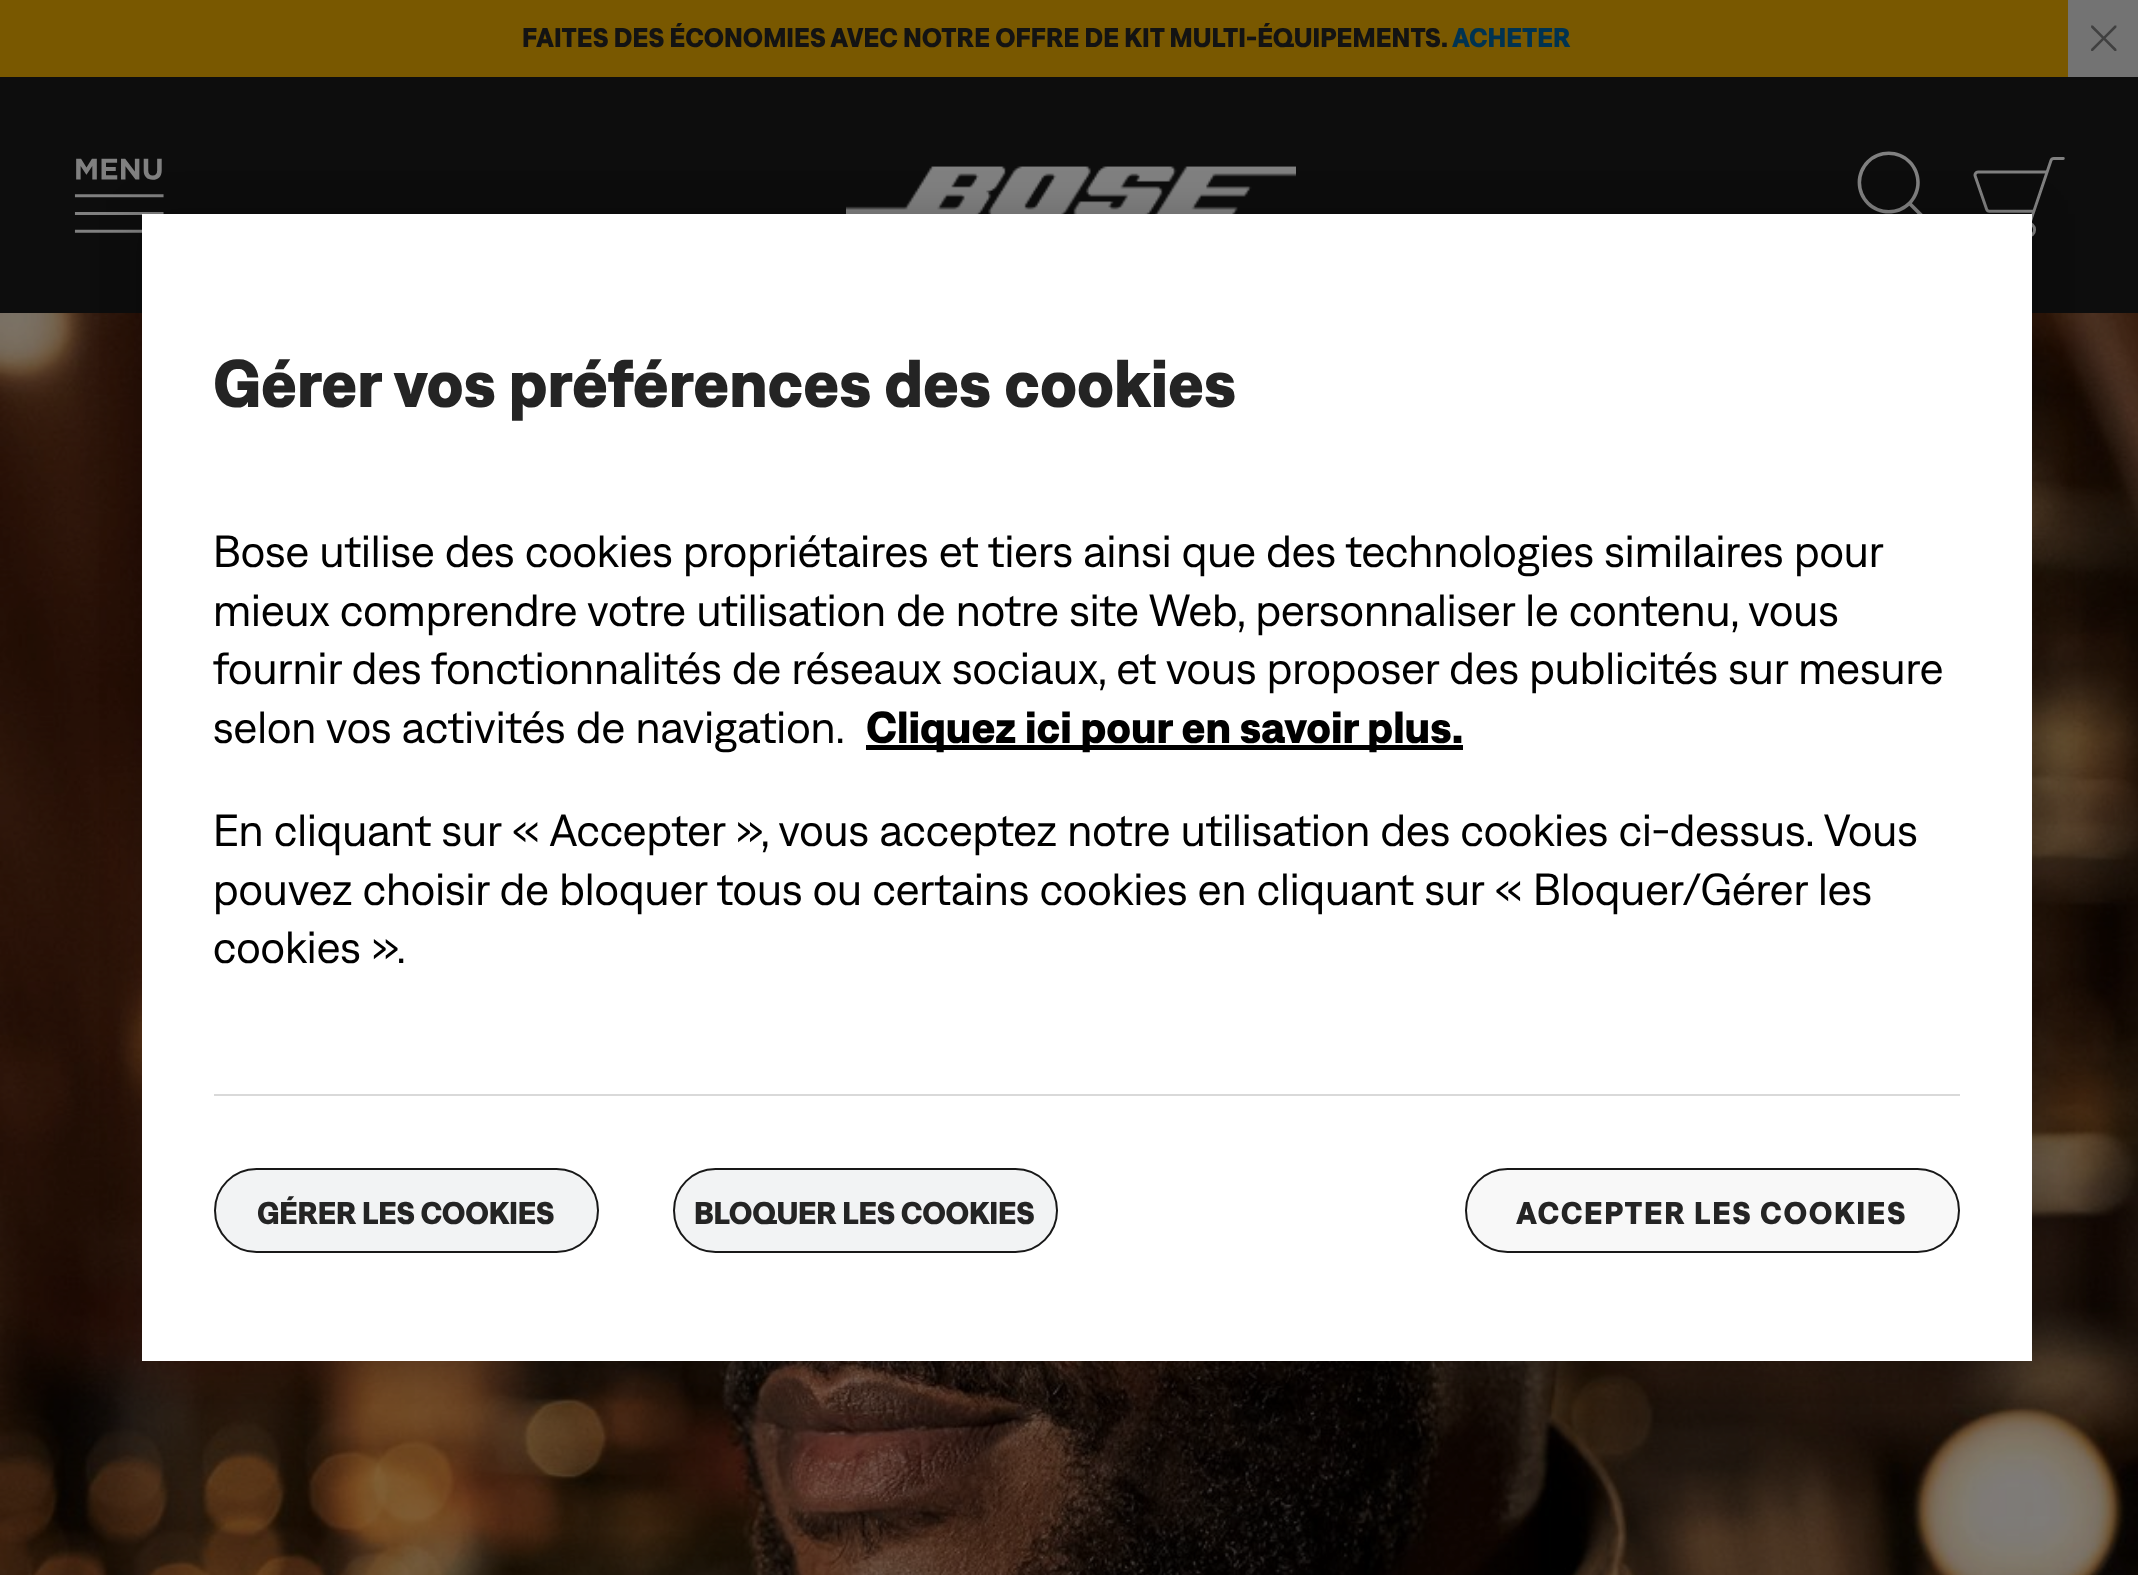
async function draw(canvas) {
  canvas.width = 2138
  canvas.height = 1575
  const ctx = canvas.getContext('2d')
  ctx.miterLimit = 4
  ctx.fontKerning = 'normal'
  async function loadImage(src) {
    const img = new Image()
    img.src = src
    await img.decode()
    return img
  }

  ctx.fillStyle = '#fff'
  ctx.fillRect(0, 0, 2138, 1575)
  ctx.fillStyle = '#795800'
  ctx.fillRect(0, 0, 2068, 77)
  ctx.font = 'bold 27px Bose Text'
  ctx.fillStyle = '#131313'
  ctx.fillText('FAITES DES ÉCONOMIES AVEC NOTRE OFFRE DE KIT MULTI-ÉQUIPEMENTS.', 522, 47)
  ctx.fillStyle = '#003351'
  ctx.fillText('ACHETER', 1452, 47)
  ctx.fillStyle = '#737373'
  ctx.fillRect(2068, 0, 70, 77)
  ctx.drawImage(await loadImage('image0.png'), 2091, 25, 26, 26)
  ctx.fillStyle = '#0d0d0d'
  ctx.fillRect(0, 77, 2138, 236)
  ctx.drawImage(await loadImage('image1.png'), 74, 158, 90, 75)
  ctx.drawImage(await loadImage('image2.png'), 846, 166, 450, 48)
  ctx.drawImage(await loadImage('image3.png'), 1857, 151, 66, 63)
  ctx.drawImage(await loadImage('image4.png'), 1973, 157, 92, 80)
  ctx.drawImage(await loadImage('image5.png'), 0, 313, 2138, 1262)
  ctx.fillStyle = '#00000033'
  ctx.filter = 'blur(20px)'
  ctx.beginPath()
  ctx.rect(142, 214, 1890, 1147)
  ctx.fill()
  ctx.filter = 'none'
  ctx.fillStyle = '#fff'
  ctx.fillRect(142, 214, 1890, 1147)
  ctx.font = 'bold 67.5px Bose Text'
  ctx.fillStyle = '#242424'
  ctx.fillText('Gérer vos préférences des cookies', 213, 407)
  ctx.font = '45px Bose Text'
  ctx.fillStyle = '#000'
  ctx.fillText('Bose utilise des cookies propriétaires et tiers ainsi que des technologies similaires pour', 213, 567)
  ctx.fillText('mieux comprendre votre utilisation de notre site Web, personnaliser le contenu, vous', 213, 626)
  ctx.fillText('fournir des fonctionnalités de réseaux sociaux, et vous proposer des publicités sur mesure', 213, 684)
  ctx.fillText('selon vos activités de navigation.', 213, 743)
  ctx.fillRect(866, 745, 597, 5)
  ctx.font = 'bold 45px Bose Text'
  ctx.fillText('Cliquez ici pour en savoir plus.', 866, 743)
  ctx.font = '45px Bose Text'
  ctx.fillText('En cliquant sur « Accepter », vous acceptez notre utilisation des cookies ci-dessus. Vous', 213, 846)
  ctx.fillText('pouvez choisir de bloquer tous ou certains cookies en cliquant sur « Bloquer/Gérer les', 213, 905)
  ctx.fillText('cookies ».', 213, 963)
  ctx.fillStyle = '#d9d9d9'
  ctx.fillRect(214, 1094, 1746, 2)
  ctx.fillStyle = '#f2f3f4'
  ctx.beginPath()
  ctx.roundRect(215, 1169, 383, 83, 41.5)
  ctx.fill()
  ctx.strokeStyle = '#181818'
  ctx.lineWidth = 2
  ctx.stroke()
  ctx.letterSpacing = '-0.3px'
  ctx.font = 'bold 31.5px Bose Text'
  ctx.fillStyle = '#242424'
  ctx.fillText('GÉRER LES COOKIES', 257, 1224)
  ctx.fillStyle = '#f2f3f4'
  ctx.beginPath()
  ctx.roundRect(674, 1169, 383, 83, 41.5)
  ctx.fill()
  ctx.stroke()
  ctx.fillStyle = '#242424'
  ctx.fillText('BLOQUER LES COOKIES', 694, 1224)
  ctx.fillStyle = '#f8f8f8'
  ctx.beginPath()
  ctx.roundRect(1466, 1169, 493, 83, 41.5)
  ctx.fill()
  ctx.stroke()
  ctx.letterSpacing = '1.6px'
  ctx.fillStyle = '#242424'
  ctx.fillText('ACCEPTER LES COOKIES', 1516, 1224)
}

draw(document.querySelector('canvas'))
